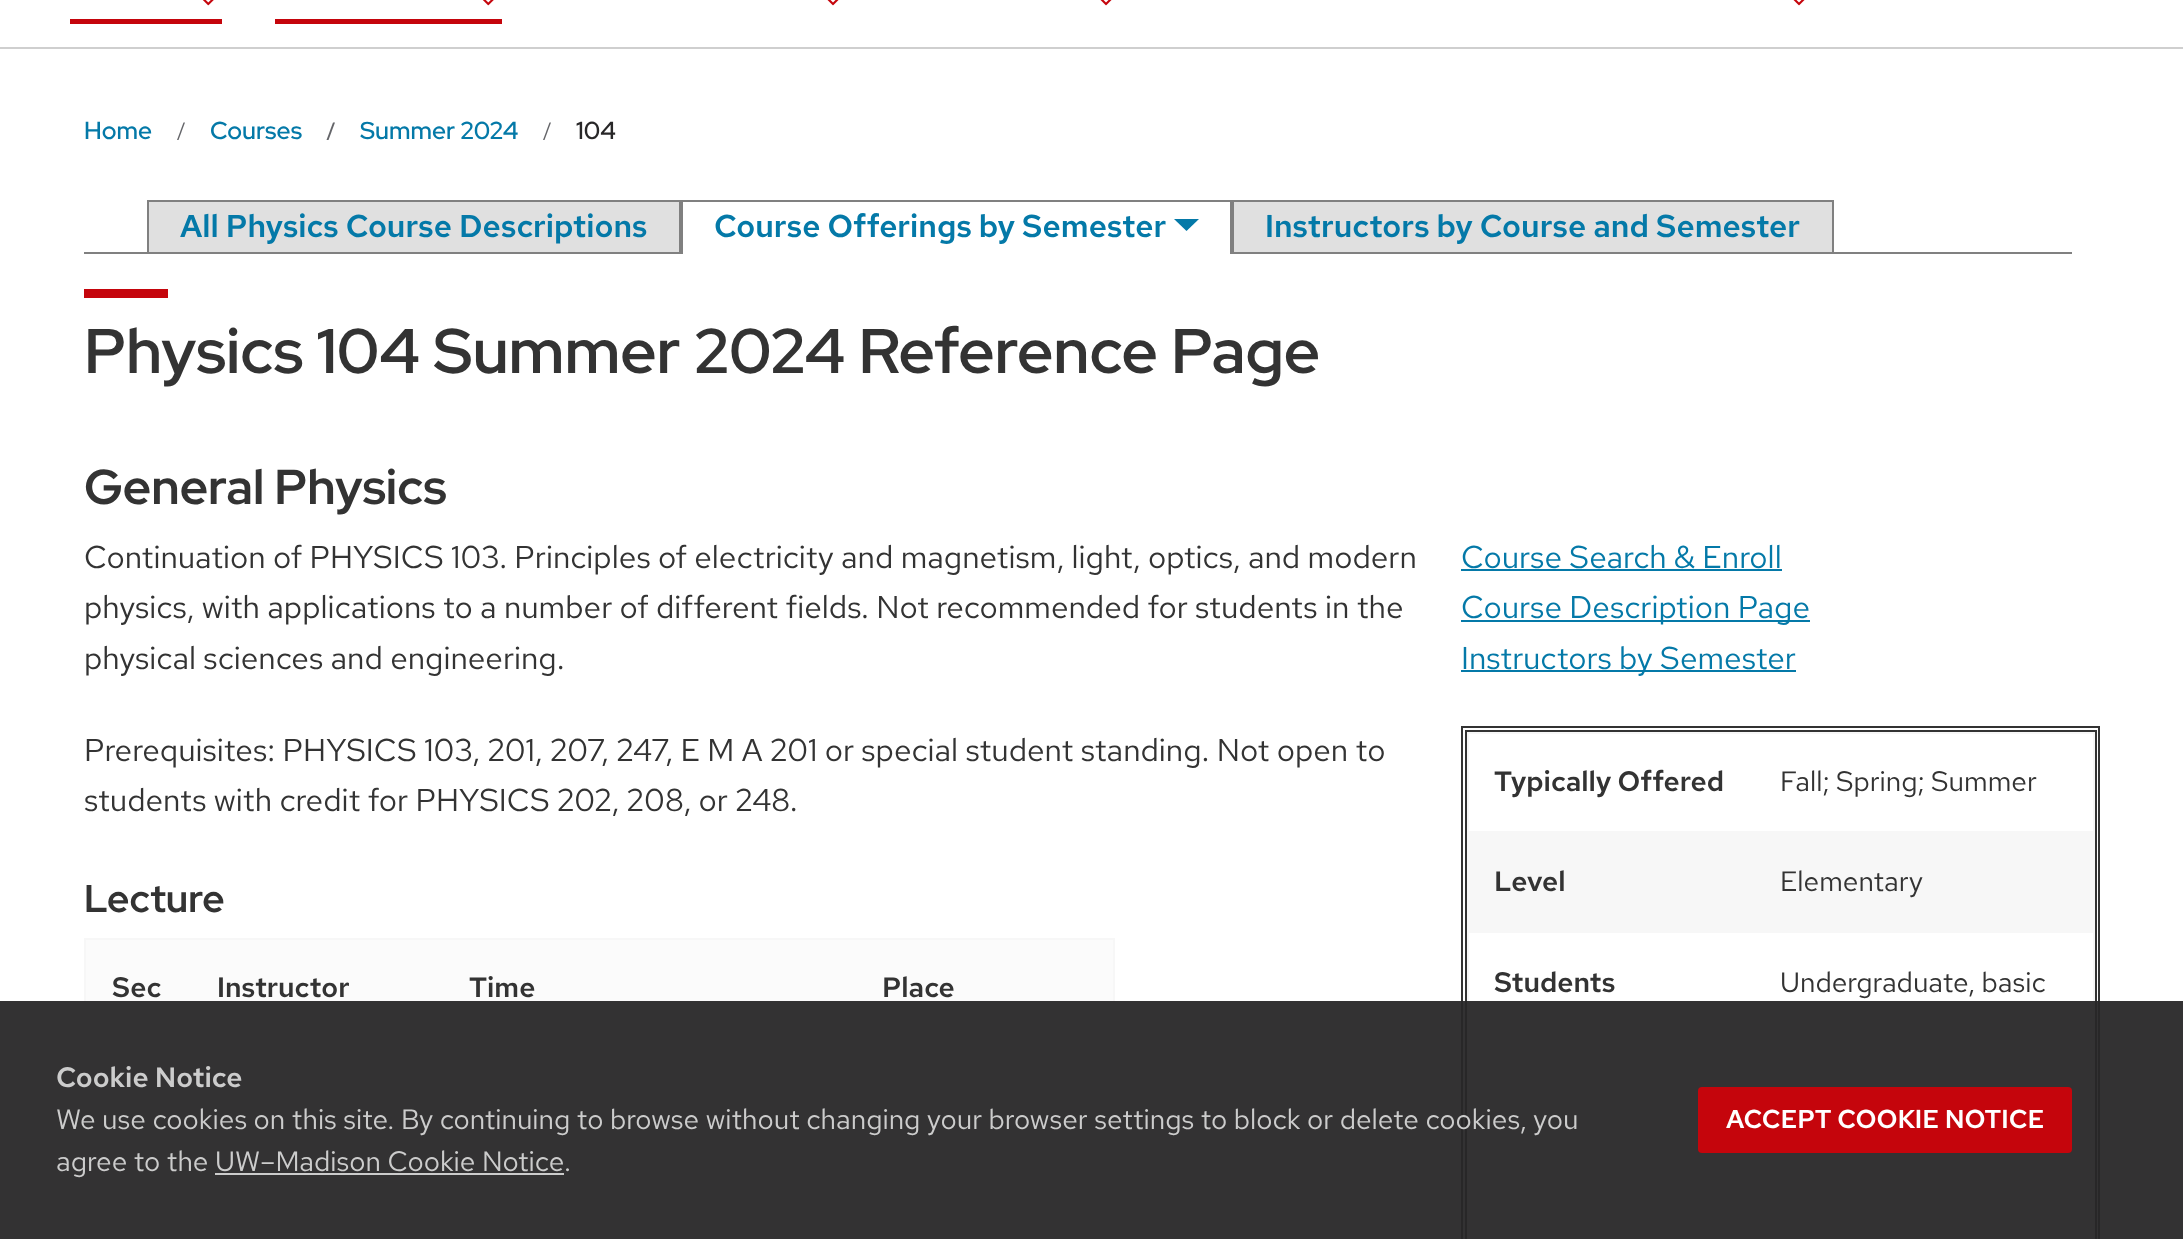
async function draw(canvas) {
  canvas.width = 2183
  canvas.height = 1239
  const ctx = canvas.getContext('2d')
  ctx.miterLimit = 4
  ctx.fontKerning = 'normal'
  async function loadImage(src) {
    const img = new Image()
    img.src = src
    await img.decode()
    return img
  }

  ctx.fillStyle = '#fff'
  ctx.fillRect(0, 0, 2183, 1239)
  ctx.fillStyle = '#cfcfcf'
  ctx.fillRect(0, 47, 2183, 2)
  ctx.fillStyle = '#c5050c'
  ctx.fillRect(70, 19, 152, 5)
  ctx.drawImage(await loadImage('image0.png'), 202, 0, 12, 6)
  ctx.fillRect(275, 19, 227, 5)
  ctx.drawImage(await loadImage('image0.png'), 482, 0, 12, 6)
  ctx.drawImage(await loadImage('image1.png'), 827, 0, 12, 6)
  ctx.drawImage(await loadImage('image1.png'), 1100, 0, 12, 6)
  ctx.drawImage(await loadImage('image1.png'), 1793, 0, 12, 6)
  ctx.font = '500 24.5px Red Hat Display'
  ctx.fillStyle = '#0479a8'
  ctx.fillText('Home', 84, 139)
  ctx.fillStyle = '#646569'
  ctx.beginPath()
  ctx.moveTo(183.5, 122.5)
  ctx.lineTo(185, 122.5)
  ctx.lineTo(178.5, 140)
  ctx.lineTo(177, 140)
  ctx.closePath()
  ctx.fill()
  ctx.fillStyle = '#0479a8'
  ctx.fillText('Courses', 210, 139)
  ctx.fillStyle = '#646569'
  ctx.beginPath()
  ctx.moveTo(333, 122.5)
  ctx.lineTo(335, 122.5)
  ctx.lineTo(328.5, 140)
  ctx.lineTo(326.5, 140)
  ctx.closePath()
  ctx.fill()
  ctx.fillStyle = '#0479a8'
  ctx.fillText('Summer 2024', 360, 139)
  ctx.fillStyle = '#646569'
  ctx.beginPath()
  ctx.moveTo(549.5, 122.5)
  ctx.lineTo(551, 122.5)
  ctx.lineTo(544.5, 140)
  ctx.lineTo(543, 140)
  ctx.closePath()
  ctx.fill()
  ctx.fillStyle = '#282728'
  ctx.fillText('104', 576, 139)
  ctx.fillStyle = '#e0e0e0'
  ctx.beginPath()
  ctx.rect(148, 201, 532, 52)
  ctx.fill()
  ctx.strokeStyle = '#808080'
  ctx.lineWidth = 2
  ctx.stroke()
  ctx.font = '600 31.5px Red Hat Text'
  ctx.fillStyle = '#0479a8'
  ctx.fillText('All Physics Course Descriptions', 180, 237)
  ctx.fillStyle = '#808080'
  ctx.fillRect(681, 200, 551, 2)
  ctx.fillRect(1230, 200, 2, 54)
  ctx.fillRect(681, 200, 2, 54)
  ctx.fillStyle = '#0479a8'
  ctx.fillText('Course Offerings by Semester', 714, 237)
  ctx.beginPath()
  ctx.moveTo(1174, 219)
  ctx.lineTo(1199, 219)
  ctx.lineTo(1186.5, 231)
  ctx.closePath()
  ctx.fill()
  ctx.fillStyle = '#e0e0e0'
  ctx.beginPath()
  ctx.rect(1233, 201, 600, 52)
  ctx.fill()
  ctx.stroke()
  ctx.fillStyle = '#0479a8'
  ctx.fillText('Instructors by Course and Semester', 1265, 237)
  ctx.fillStyle = '#808080'
  ctx.fillRect(84, 252, 63, 2)
  ctx.fillRect(1834, 252, 238, 2)
  ctx.fillStyle = '#c5050c'
  ctx.fillRect(84, 289, 84, 9)
  ctx.font = '600 63px "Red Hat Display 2"'
  ctx.fillStyle = '#333'
  ctx.fillText('Physics 104 Summer 2024 Reference Page', 84, 373)
  ctx.font = '600 49px Red Hat Display'
  ctx.fillText('General Physics', 84, 504)
  ctx.font = '31.5px Red Hat Text'
  ctx.fillText('Continuation of PHYSICS 103. Principles of electricity and magnetism, light, optics, and modern', 84, 568)
  ctx.fillText('physics, with applications to a number of different fields. Not recommended for students in the', 84, 618)
  ctx.fillText('physical sciences and engineering.', 84, 669)
  ctx.fillStyle = '#0479a8'
  ctx.fillText('Course Search & Enroll', 1461, 568)
  ctx.fillRect(1461, 569, 321, 2)
  ctx.fillRect(1461, 620, 349, 2)
  ctx.fillText('Course Description Page', 1461, 618)
  ctx.fillRect(1461, 670, 335, 2)
  ctx.fillText('Instructors by Semester', 1461, 669)
  ctx.strokeStyle = '#333'
  ctx.strokeRect(1462, 727, 637, 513)
  ctx.strokeRect(1466, 731, 630, 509)
  ctx.strokeStyle = '#f7f7f7'
  ctx.strokeRect(1468, 733, 626, 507)
  ctx.font = '600 28px Red Hat Text'
  ctx.fillStyle = '#333'
  ctx.fillText('Typically Offered', 1494, 791)
  ctx.font = '28px Red Hat Text'
  ctx.fillText('Fall; Spring; Summer', 1780, 791)
  ctx.fillStyle = '#f7f7f7'
  ctx.fillRect(1469, 831, 624, 102)
  ctx.font = '600 28px Red Hat Text'
  ctx.fillStyle = '#333'
  ctx.fillText('Level', 1494, 891)
  ctx.font = '28px Red Hat Text'
  ctx.fillText('Elementary', 1780, 891)
  ctx.font = '600 28px Red Hat Text'
  ctx.fillText('Students', 1494, 992)
  ctx.font = '28px Red Hat Text'
  ctx.fillText('Undergraduate, basic', 1780, 992)
  ctx.fillStyle = '#f7f7f7'
  ctx.fillRect(1469, 1034, 624, 100)
  ctx.fillRect(1467, 1236, 628, 3)
  ctx.font = '31.5px Red Hat Text'
  ctx.fillStyle = '#333'
  ctx.fillText('Prerequisites: PHYSICS 103, 201, 207, 247, E M A 201 or special student standing. Not open to', 84, 761)
  ctx.fillText('students with credit for PHYSICS 202, 208, or 248.', 84, 811)
  ctx.font = '600 38.5px Red Hat Display'
  ctx.fillText('Lecture', 84, 912)
  ctx.fillStyle = '#fbfbfb'
  ctx.beginPath()
  ctx.rect(85, 939, 1029, 98)
  ctx.fill()
  ctx.stroke()
  ctx.font = '600 28px Red Hat Text'
  ctx.fillStyle = '#333'
  ctx.fillText('Sec', 112, 997)
  ctx.fillText('Instructor', 217, 997)
  ctx.fillText('Time', 469, 997)
  ctx.fillText('Place', 882, 997)
  ctx.strokeRect(85, 1039, 1029, 99)
  ctx.fillStyle = '#282728f2'
  ctx.fillRect(0, 1001, 2183, 238)
  ctx.fillStyle = '#ccc'
  ctx.fillText('Cookie Notice', 56, 1087)
  ctx.font = '28px Red Hat Text'
  ctx.fillText('We use cookies on this site. By continuing to browse without changing your browser settings to block or delete cookies, you', 56, 1129)
  ctx.fillText('agree to the', 56, 1171)
  ctx.fillText('UW–Madison Cookie Notice', 215, 1171)
  ctx.fillRect(215, 1173, 349, 2)
  ctx.fillText('.', 564, 1171)
  ctx.fillStyle = '#c5050c'
  ctx.beginPath()
  ctx.roundRect(1698, 1087, 374, 66, 4)
  ctx.fill()
  ctx.font = '600 25.9px Red Hat Text'
  ctx.fillStyle = '#fff'
  ctx.fillText('ACCEPT COOKIE NOTICE', 1726, 1128)
}

draw(document.querySelector('canvas'))
